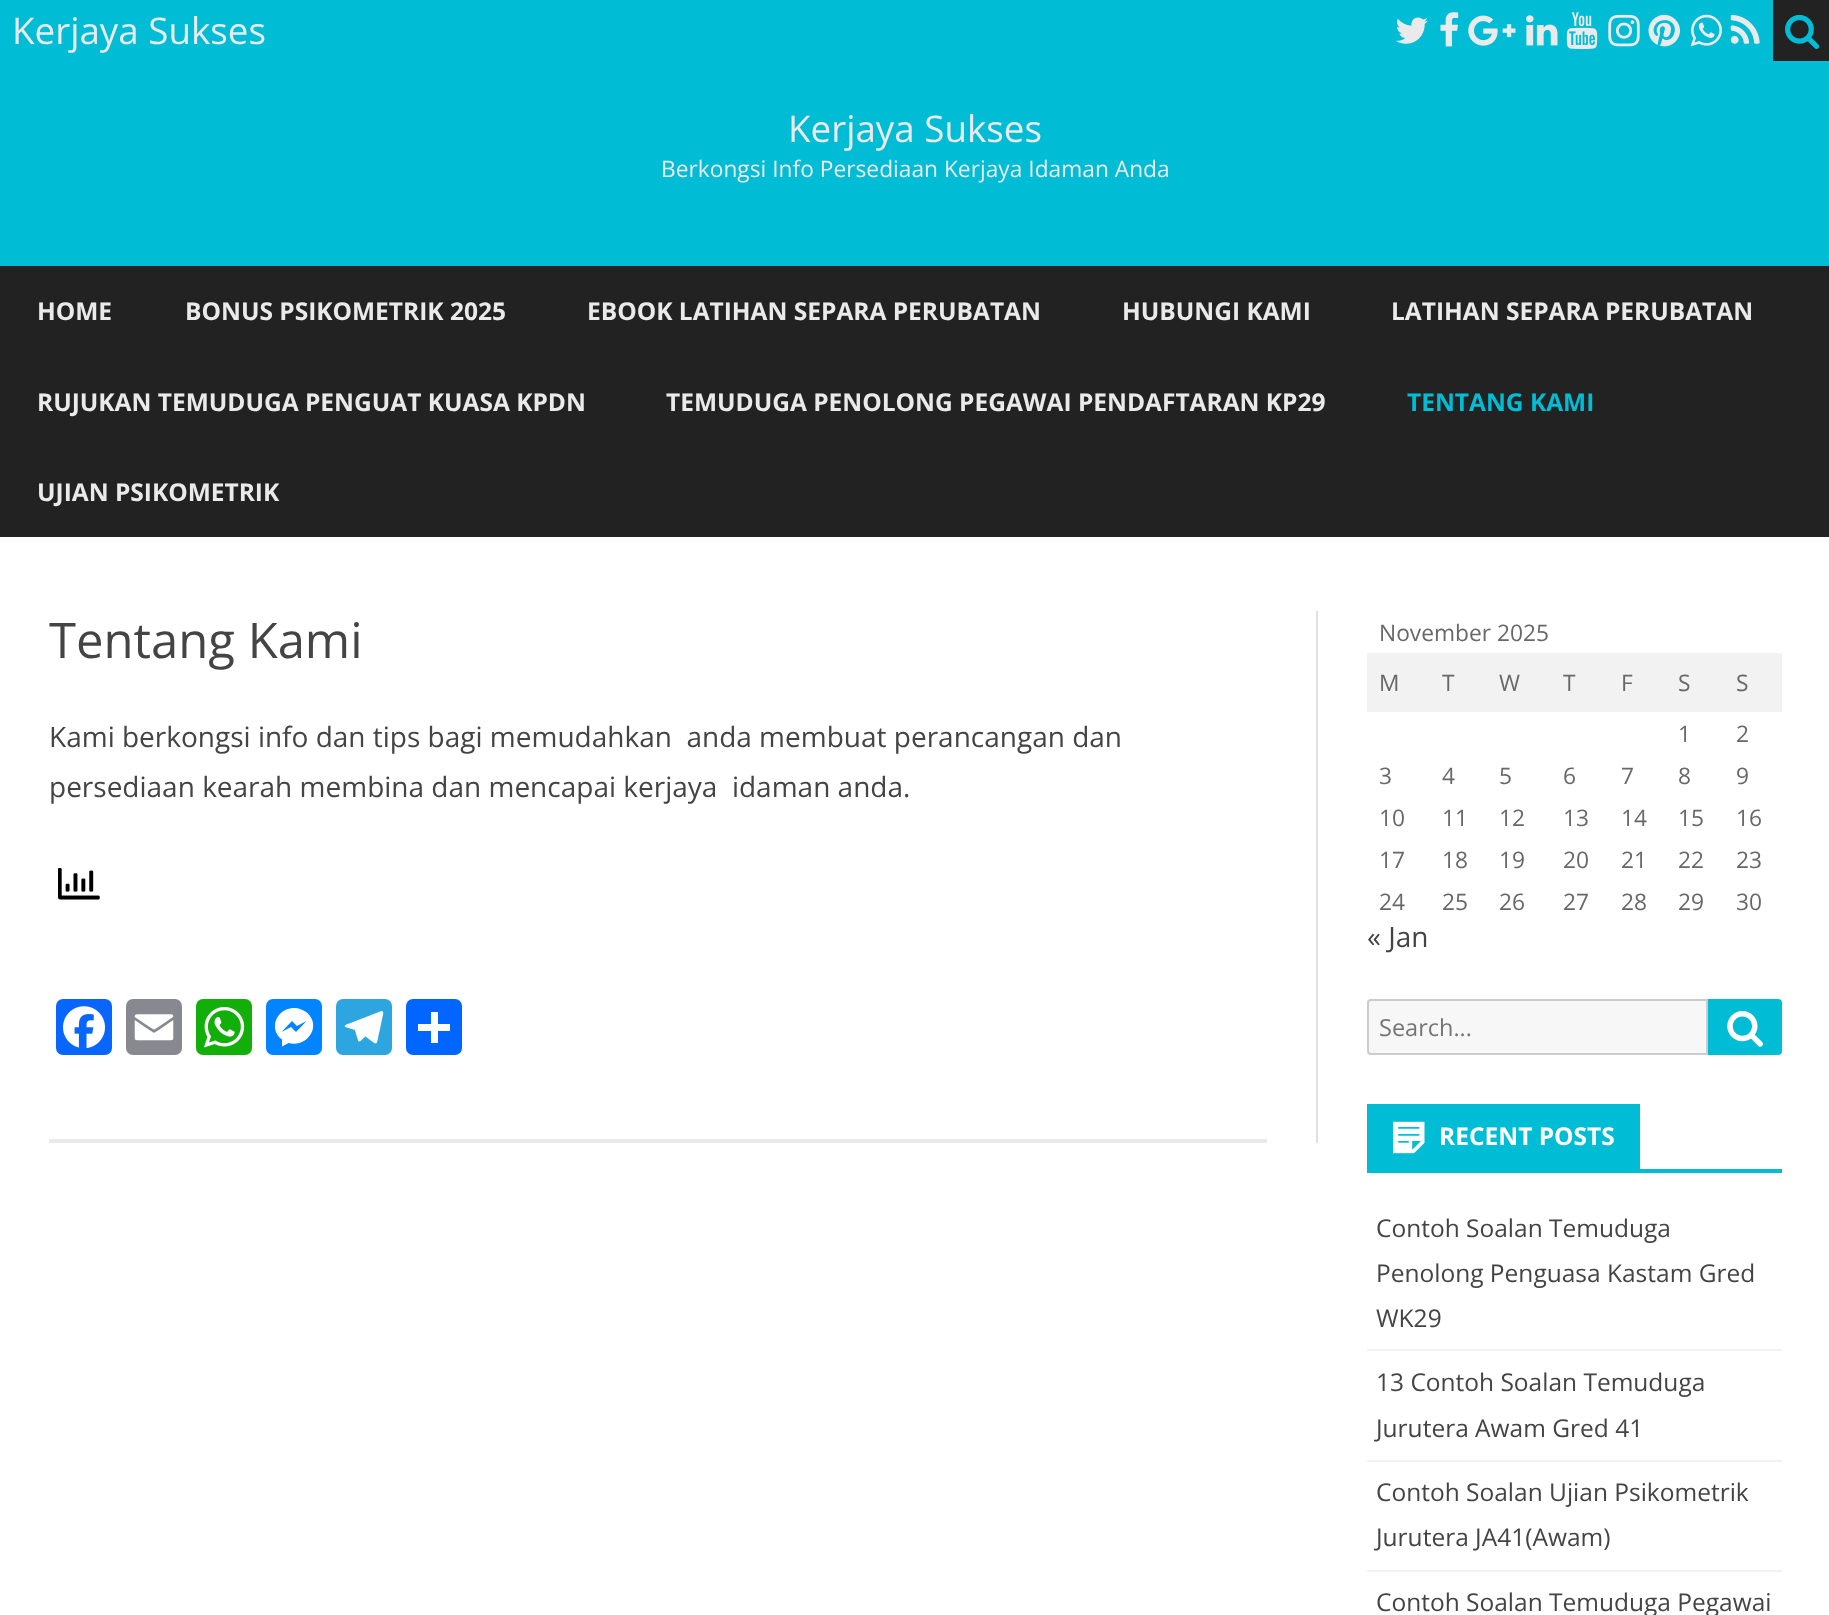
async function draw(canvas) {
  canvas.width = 1829
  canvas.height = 1615
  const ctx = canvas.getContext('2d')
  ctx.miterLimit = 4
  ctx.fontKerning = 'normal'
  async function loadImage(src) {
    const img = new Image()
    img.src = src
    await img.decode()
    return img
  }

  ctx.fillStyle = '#fff'
  ctx.fillRect(0, 0, 1829, 1615)
  ctx.fillStyle = '#00bcd5'
  ctx.fillRect(0, 0, 1773, 61)
  ctx.font = '36.75px Open Sans'
  ctx.fillStyle = '#eaeaea'
  ctx.fillText('Kerjaya Sukses', 12, 44)
  ctx.drawImage(await loadImage('image0.png'), 1395, 17, 33, 27)
  ctx.drawImage(await loadImage('image1.png'), 1440, 12, 19, 35)
  ctx.drawImage(await loadImage('image2.png'), 1468, 15, 48, 31)
  ctx.drawImage(await loadImage('image3.png'), 1526, 15, 32, 31)
  ctx.drawImage(await loadImage('image4.png'), 1566, 12, 32, 37)
  ctx.drawImage(await loadImage('image5.png'), 1608, 14, 32, 33)
  ctx.drawImage(await loadImage('image6.png'), 1648, 14, 32, 33)
  ctx.drawImage(await loadImage('image7.png'), 1690, 14, 32, 33)
  ctx.drawImage(await loadImage('image8.png'), 1730, 14, 30, 30)
  ctx.fillStyle = '#222'
  ctx.fillRect(1773, 0, 56, 61)
  ctx.drawImage(await loadImage('image9.png'), 1785, 14, 35, 35)
  ctx.fillStyle = '#00bcd5'
  ctx.fillRect(0, 61, 1829, 205)
  ctx.fillStyle = '#eaeaea'
  ctx.fillText('Kerjaya Sukses', 788, 142)
  ctx.font = '22.75px Open Sans'
  ctx.fillText('Berkongsi Info Persediaan Kerjaya Idaman Anda', 661, 177)
  ctx.fillStyle = '#222'
  ctx.fillRect(0, 266, 1829, 271)
  ctx.font = 'bold 24.5px Open Sans'
  ctx.fillStyle = '#eaeaea'
  ctx.fillText('HOME', 37, 320)
  ctx.fillText('BONUS PSIKOMETRIK 2025', 185, 320)
  ctx.fillText('EBOOK LATIHAN SEPARA PERUBATAN', 587, 320)
  ctx.fillText('HUBUNGI KAMI', 1122, 320)
  ctx.fillText('LATIHAN SEPARA PERUBATAN', 1391, 320)
  ctx.fillText('RUJUKAN TEMUDUGA PENGUAT KUASA KPDN', 37, 411)
  ctx.fillText('TEMUDUGA PENOLONG PEGAWAI PENDAFTARAN KP29', 666, 411)
  ctx.fillStyle = '#00bcd5'
  ctx.fillText('TENTANG KAMI', 1407, 411)
  ctx.fillStyle = '#eaeaea'
  ctx.fillText('UJIAN PSIKOMETRIK', 37, 501)
  ctx.fillStyle = '#e0e0e0'
  ctx.fillRect(1316, 611, 2, 532)
  ctx.font = '49px Open Sans'
  ctx.fillStyle = '#444'
  ctx.fillText('Tentang Kami', 49, 658)
  ctx.font = '28px Open Sans'
  ctx.fillText('Kami berkongsi info dan tips bagi memudahkan  anda membuat perancangan dan', 49, 747)
  ctx.fillText('persediaan kearah membina dan mencapai kerjaya  idaman anda.', 49, 797)
  ctx.drawImage(await loadImage('image10.png'), 58, 868, 42, 32)
  ctx.fillStyle = '#0866ff'
  ctx.beginPath()
  ctx.roundRect(56, 999, 56, 56, 7)
  ctx.fill()
  ctx.drawImage(await loadImage('image11.png'), 63, 1006, 42, 43)
  ctx.fillStyle = '#888990'
  ctx.beginPath()
  ctx.roundRect(126, 999, 56, 56, 7)
  ctx.fill()
  ctx.drawImage(await loadImage('image12.png'), 134, 1014, 40, 27)
  ctx.fillStyle = '#12af0a'
  ctx.beginPath()
  ctx.roundRect(196, 999, 56, 56, 7)
  ctx.fill()
  ctx.drawImage(await loadImage('image13.png'), 203, 1007, 42, 41)
  ctx.fillStyle = '#0084ff'
  ctx.beginPath()
  ctx.roundRect(266, 999, 56, 56, 7)
  ctx.fill()
  ctx.fillStyle = '#fff'
  ctx.beginPath()
  ctx.moveTo(294, 1008)
  ctx.bezierCurveTo(276.5, 1008, 268, 1029, 282, 1039.5)
  ctx.lineTo(282, 1046.5)
  ctx.lineTo(288.5, 1043)
  ctx.bezierCurveTo(306.5, 1048, 322, 1027, 307.5, 1013)
  ctx.bezierCurveTo(304, 1010, 299, 1008, 294, 1008)
  ctx.moveTo(296, 1032)
  ctx.lineTo(291, 1027)
  ctx.lineTo(281.5, 1032)
  ctx.lineTo(292, 1021)
  ctx.lineTo(297, 1026)
  ctx.lineTo(306.5, 1021)
  ctx.closePath()
  ctx.fill()
  ctx.fillStyle = '#2ca5e0'
  ctx.beginPath()
  ctx.roundRect(336, 999, 56, 56, 7)
  ctx.fill()
  ctx.drawImage(await loadImage('image14.png'), 344, 1011, 40, 33)
  ctx.fillStyle = '#0166ff'
  ctx.beginPath()
  ctx.roundRect(406, 999, 56, 56, 7)
  ctx.fill()
  ctx.fillStyle = '#fff'
  ctx.fillRect(431, 1012, 7, 31)
  ctx.fillRect(418, 1024, 32, 7)
  ctx.fillStyle = '#eaeaea'
  ctx.fillRect(49, 1139, 1218, 4)
  ctx.font = '22.75px Open Sans'
  ctx.fillStyle = '#686868'
  ctx.fillText('November 2025', 1379, 641)
  ctx.fillStyle = '#f2f2f2'
  ctx.fillRect(1367, 653, 415, 59)
  ctx.fillStyle = '#686868'
  ctx.fillText('M', 1379, 691)
  ctx.fillText('T', 1442, 691)
  ctx.fillText('W', 1499, 691)
  ctx.fillText('T', 1563, 691)
  ctx.fillText('F', 1621, 691)
  ctx.fillText('S', 1678, 691)
  ctx.fillText('S', 1736, 691)
  ctx.fillText('1', 1678, 742)
  ctx.fillText('2', 1736, 742)
  ctx.fillText('3', 1379, 784)
  ctx.fillText('4', 1442, 784)
  ctx.fillText('5', 1499, 784)
  ctx.fillText('6', 1563, 784)
  ctx.fillText('7', 1621, 784)
  ctx.fillText('8', 1678, 784)
  ctx.fillText('9', 1736, 784)
  ctx.fillText('10', 1379, 826)
  ctx.fillText('11', 1442, 826)
  ctx.fillText('12', 1499, 826)
  ctx.fillText('13', 1563, 826)
  ctx.fillText('14', 1621, 826)
  ctx.fillText('15', 1678, 826)
  ctx.fillText('16', 1736, 826)
  ctx.fillText('17', 1379, 868)
  ctx.fillText('18', 1442, 868)
  ctx.fillText('19', 1499, 868)
  ctx.fillText('20', 1563, 868)
  ctx.fillText('21', 1621, 868)
  ctx.fillText('22', 1678, 868)
  ctx.fillText('23', 1736, 868)
  ctx.fillText('24', 1379, 910)
  ctx.fillText('25', 1442, 910)
  ctx.fillText('26', 1499, 910)
  ctx.fillText('27', 1563, 910)
  ctx.fillText('28', 1621, 910)
  ctx.fillText('29', 1678, 910)
  ctx.fillText('30', 1736, 910)
  ctx.font = '28px Open Sans'
  ctx.fillStyle = '#444'
  ctx.fillText('« Jan', 1367, 947)
  ctx.fillStyle = '#f7f7f7'
  ctx.beginPath()
  ctx.roundRect(1368, 1000, 339, 54, [3, 0, 0, 3])
  ctx.fill()
  ctx.strokeStyle = '#ccc'
  ctx.lineWidth = 2
  ctx.stroke()
  ctx.font = '23.5px Open Sans'
  ctx.fillStyle = '#757575'
  ctx.fillText('Search...', 1379, 1036)
  ctx.fillStyle = '#00bcd5'
  ctx.beginPath()
  ctx.roundRect(1708, 999, 74, 56, [0, 4, 4, 0])
  ctx.fill()
  ctx.drawImage(await loadImage('image15.png'), 1727, 1011, 36, 36)
  ctx.fillRect(1367, 1169, 415, 4)
  ctx.fillRect(1367, 1104, 273, 65)
  ctx.drawImage(await loadImage('image16.png'), 1393, 1121, 32, 33)
  ctx.font = 'bold 24.5px Open Sans'
  ctx.fillStyle = '#fff'
  ctx.fillText('RECENT POSTS', 1439, 1145)
  ctx.fillStyle = '#f2f2f2'
  ctx.fillRect(1367, 1349, 415, 2)
  ctx.font = '24.5px Open Sans'
  ctx.fillStyle = '#444'
  ctx.fillText('Contoh Soalan Temuduga', 1376, 1237)
  ctx.fillText('Penolong Penguasa Kastam Gred', 1376, 1282)
  ctx.fillText('WK29', 1376, 1327)
  ctx.fillStyle = '#f2f2f2'
  ctx.fillRect(1367, 1460, 415, 2)
  ctx.fillStyle = '#444'
  ctx.fillText('13 Contoh Soalan Temuduga', 1376, 1391)
  ctx.fillText('Jurutera Awam Gred 41', 1376, 1437)
  ctx.fillStyle = '#f2f2f2'
  ctx.fillRect(1367, 1570, 415, 2)
  ctx.fillStyle = '#444'
  ctx.fillText('Contoh Soalan Ujian Psikometrik', 1376, 1501)
  ctx.fillText('Jurutera JA41(Awam)', 1376, 1546)
  ctx.fillText('Contoh Soalan Temuduga Pegawai', 1376, 1611)
}

draw(document.querySelector('canvas'))
